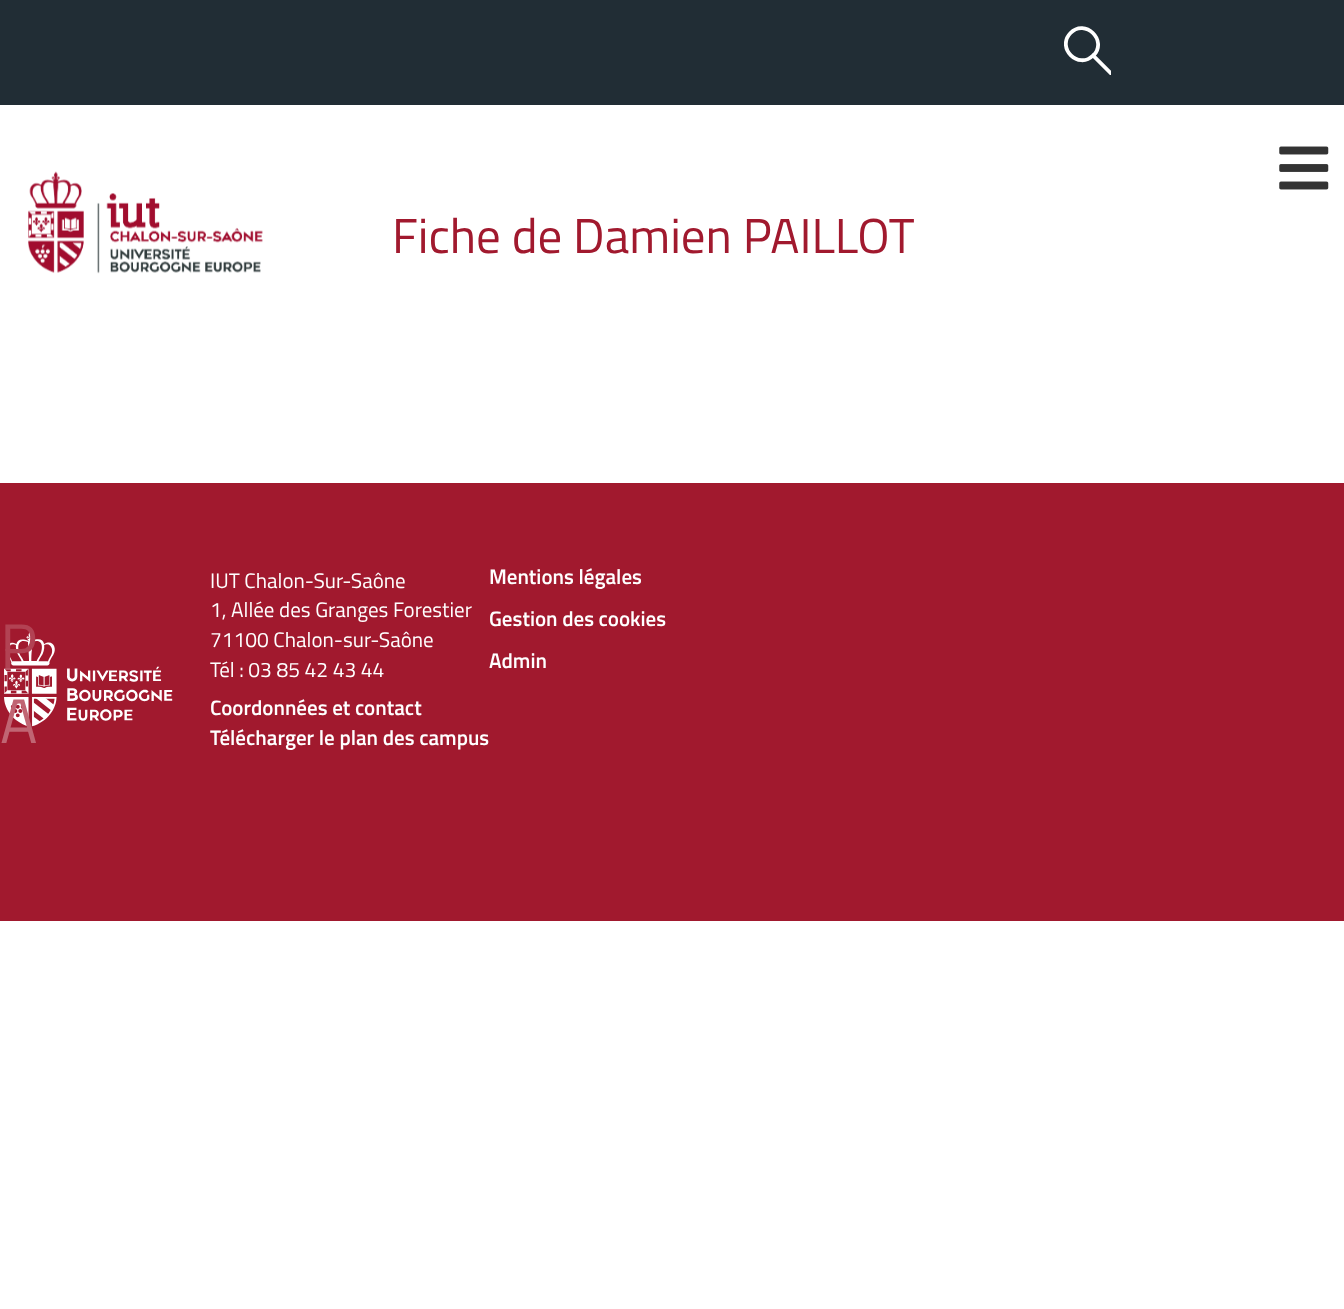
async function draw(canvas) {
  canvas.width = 1344
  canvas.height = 1309
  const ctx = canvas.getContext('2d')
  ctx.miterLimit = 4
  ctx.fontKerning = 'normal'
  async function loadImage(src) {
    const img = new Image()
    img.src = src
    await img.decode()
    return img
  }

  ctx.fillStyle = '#fff'
  ctx.fillRect(0, 0, 1344, 1309)
  ctx.fillStyle = '#212d35'
  ctx.fillRect(0, 0, 1344, 105)
  ctx.save()
  ctx.beginPath()
  ctx.rect(1064, 26, 47, 49)
  ctx.clip()
  ctx.beginPath()
  ctx.moveTo(1093.5, 55.5)
  ctx.bezierCurveTo(1108, 40.5, 1085, 18, 1070.5, 33)
  ctx.bezierCurveTo(1056, 48, 1078.5, 70, 1093, 55.5)
  ctx.lineTo(1111, 73.5)
  ctx.strokeStyle = '#fff'
  ctx.lineWidth = 3.8
  ctx.lineCap = 'round'
  ctx.stroke()
  ctx.restore()
  ctx.font = '49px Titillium'
  ctx.fillStyle = '#a1192e'
  ctx.fillText('Fiche de Damien PAILLOT', 392, 253)
  ctx.drawImage(await loadImage('image0.png'), 28, 171, 235, 103)
  ctx.drawImage(await loadImage('image1.png'), 1279, 146, 50, 44)
  ctx.fillRect(0, 483, 1344, 438)
  ctx.drawImage(await loadImage('image2.png'), 4, 631, 169, 96)
  ctx.font = '63px Titillium'
  ctx.fillStyle = '#b24253'
  ctx.fillText('P', 0, 668)
  ctx.fillStyle = '#c06573'
  ctx.fillText('A', 0, 743)
  ctx.font = '21px Titillium'
  ctx.fillStyle = '#fff'
  ctx.fillText('IUT Chalon-Sur-Saône', 210, 588)
  ctx.fillText('1, Allée des Granges Forestier', 210, 617)
  ctx.fillText('71100 Chalon-sur-Saône', 210, 647)
  ctx.fillText('Tél : 03 85 42 43 44', 210, 677)
  ctx.font = '600 21px Titillium'
  ctx.fillText('Coordonnées et contact', 210, 715)
  ctx.fillText('Télécharger le plan des campus', 210, 745)
  ctx.fillText('Mentions légales', 489, 584)
  ctx.fillText('Gestion des cookies', 489, 626)
  ctx.fillText('Admin', 489, 668)
}

draw(document.querySelector('canvas'))
